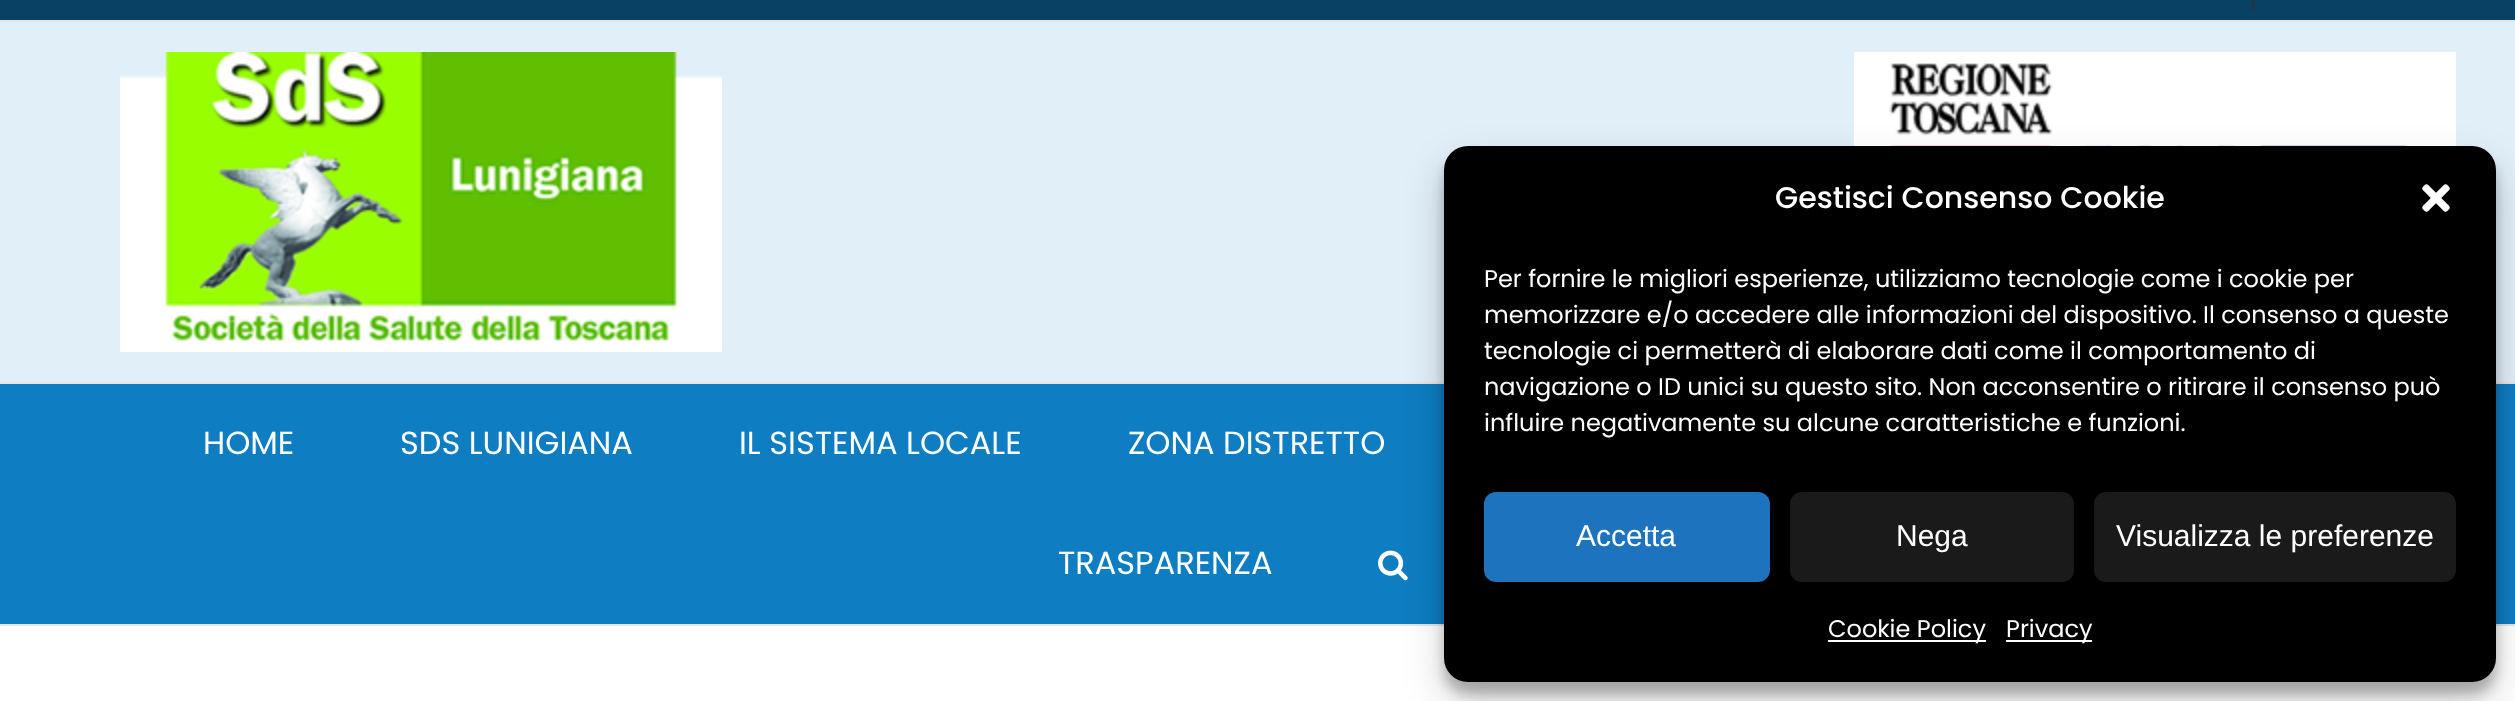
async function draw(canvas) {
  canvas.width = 2515
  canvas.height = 701
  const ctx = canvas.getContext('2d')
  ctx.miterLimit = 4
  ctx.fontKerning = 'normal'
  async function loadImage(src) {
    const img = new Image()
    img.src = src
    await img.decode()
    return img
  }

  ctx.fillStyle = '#fff'
  ctx.fillRect(0, 0, 2515, 701)
  ctx.fillStyle = '#074163'
  ctx.fillRect(0, 0, 2515, 20)
  ctx.fillStyle = '#e5e5e5'
  ctx.fillRect(0, 20, 2515, 2)
  ctx.fillStyle = '#303030'
  ctx.fillRect(2252, 0, 2, 10)
  ctx.fillStyle = '#e1eff8'
  ctx.fillRect(0, 22, 2515, 360)
  ctx.fillStyle = '#e5e5e5'
  ctx.fillRect(0, 382, 2515, 2)
  ctx.drawImage(await loadImage('image0.png'), 120, 52, 602, 300)
  ctx.drawImage(await loadImage('image1.png'), 1854, 52, 602, 94)
  ctx.fillStyle = '#0e7dc1'
  ctx.fillRect(0, 384, 2515, 240)
  ctx.fillStyle = '#e5e5e5'
  ctx.fillRect(0, 624, 2515, 2)
  ctx.font = '32px Poppins'
  ctx.fillStyle = '#fff'
  ctx.fillText('HOME', 203, 454)
  ctx.fillText('SDS LUNIGIANA', 400, 454)
  ctx.fillText('IL SISTEMA LOCALE', 739, 454)
  ctx.fillText('ZONA DISTRETTO', 1128, 454)
  ctx.fillText('TRASPARENZA', 1058, 574)
  ctx.drawImage(await loadImage('image2.png'), 1378, 550, 30, 31)
  ctx.fillStyle = '#0000003b'
  ctx.filter = 'blur(6px)'
  ctx.beginPath()
  ctx.roundRect(1444, 158, 1052, 536, 24)
  ctx.fill()
  ctx.filter = 'none'
  ctx.fillStyle = '#00000030'
  ctx.filter = 'blur(20px)'
  ctx.beginPath()
  ctx.roundRect(1444, 166, 1052, 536, 24)
  ctx.fill()
  ctx.filter = 'none'
  ctx.fillStyle = '#000'
  ctx.beginPath()
  ctx.roundRect(1444, 146, 1052, 536, 24)
  ctx.fill()
  ctx.font = '500 30px Poppins'
  ctx.fillStyle = '#fff'
  ctx.fillText('Gestisci Consenso Cookie', 1775, 208)
  ctx.drawImage(await loadImage('image3.png'), 2422, 184, 28, 28)
  ctx.font = '24px Poppins'
  ctx.fillText('Per fornire le migliori esperienze, utilizziamo tecnologie come i cookie per', 1484, 287)
  ctx.fillText('memorizzare e/o accedere alle informazioni del dispositivo. Il consenso a queste', 1484, 323)
  ctx.fillText('tecnologie ci permetterà di elaborare dati come il comportamento di', 1484, 359)
  ctx.fillText('navigazione o ID unici su questo sito. Non acconsentire o ritirare il consenso può', 1484, 395)
  ctx.fillText('influire negativamente su alcune caratteristiche e funzioni.', 1484, 431)
  ctx.fillStyle = '#1e73be'
  ctx.beginPath()
  ctx.roundRect(1485, 493, 284, 88, 11)
  ctx.fill()
  ctx.strokeStyle = '#1e73be'
  ctx.lineWidth = 2
  ctx.stroke()
  ctx.font = '30px Liberation Sans'
  ctx.fillStyle = '#fff'
  ctx.fillText('Accetta', 1576, 546)
  ctx.fillStyle = '#1a1a1a'
  ctx.beginPath()
  ctx.roundRect(1791, 493, 282, 88, 11)
  ctx.fill()
  ctx.strokeStyle = '#1a1a1a'
  ctx.stroke()
  ctx.fillStyle = '#fff'
  ctx.fillText('Nega', 1896, 546)
  ctx.fillStyle = '#1a1a1a'
  ctx.beginPath()
  ctx.roundRect(2095, 493, 360, 88, 11)
  ctx.fill()
  ctx.stroke()
  ctx.fillStyle = '#fff'
  ctx.fillText('Visualizza le preferenze', 2116, 546)
  ctx.fillRect(1828, 640, 158, 2)
  ctx.font = '24px Poppins'
  ctx.fillText('Cookie Policy', 1828, 637)
  ctx.fillRect(2006, 640, 86, 2)
  ctx.fillText('Privacy', 2006, 637)
}

draw(document.querySelector('canvas'))
